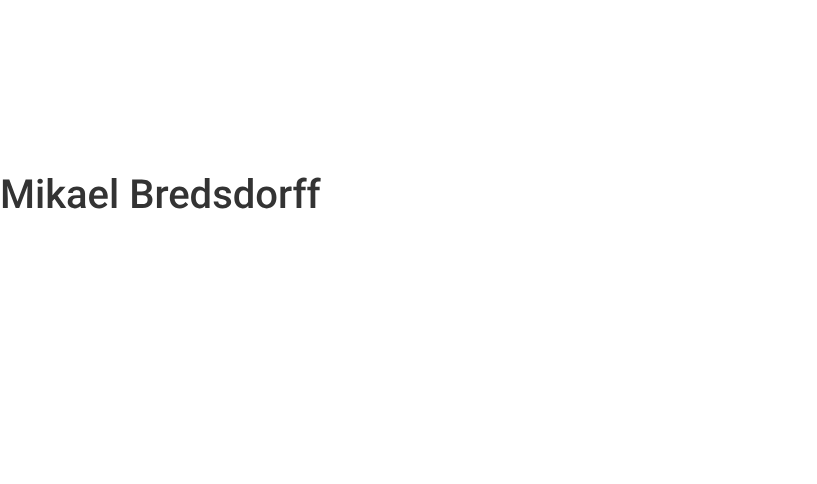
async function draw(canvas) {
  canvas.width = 817
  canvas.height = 484
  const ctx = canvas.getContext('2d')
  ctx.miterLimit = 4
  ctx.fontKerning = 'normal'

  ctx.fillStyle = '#fff'
  ctx.fillRect(0, 0, 817, 484)
  ctx.font = '500 40px Roboto'
  ctx.fillStyle = '#333'
  ctx.fillText('Mikael Bredsdorff', 0, 208)
}

draw(document.querySelector('canvas'))
